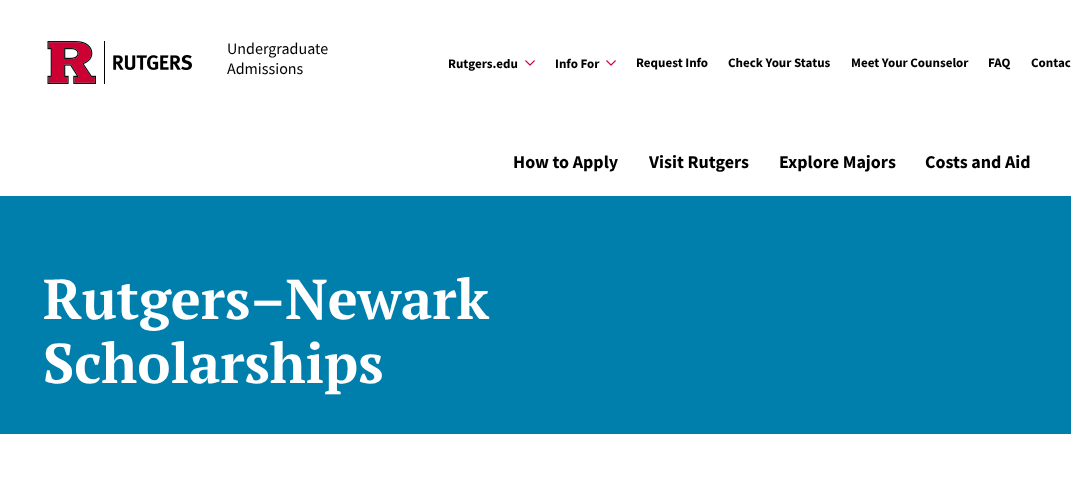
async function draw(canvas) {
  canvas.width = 1071
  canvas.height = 485
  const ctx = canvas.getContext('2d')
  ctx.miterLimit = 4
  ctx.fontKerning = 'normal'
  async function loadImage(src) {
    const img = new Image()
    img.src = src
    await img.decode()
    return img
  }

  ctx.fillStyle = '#fff'
  ctx.fillRect(0, 0, 1071, 485)
  ctx.drawImage(await loadImage('image0.png'), 47, 41, 145, 43)
  ctx.font = '16px Source Sans Pro'
  ctx.fillStyle = '#000'
  ctx.fillText('Undergraduate', 227, 54)
  ctx.fillText('Admissions', 227, 74)
  ctx.font = 'bold 13px Source Sans Pro'
  ctx.fillText('Rutgers.edu', 448, 68)
  ctx.drawImage(await loadImage('image1.png'), 525, 60, 10, 6)
  ctx.fillText('Info For', 555, 68)
  ctx.drawImage(await loadImage('image1.png'), 606, 60, 10, 6)
  ctx.fillText('Request Info', 636, 67)
  ctx.fillText('Check Your Status', 728, 67)
  ctx.fillText('Meet Your Counselor', 851, 67)
  ctx.fillText('FAQ', 988, 67)
  ctx.fillText('Contac', 1031, 67)
  ctx.font = 'bold 18px Source Sans Pro'
  ctx.fillText('How to Apply', 513, 168)
  ctx.fillText('Visit Rutgers', 649, 168)
  ctx.fillText('Explore Majors', 779, 168)
  ctx.fillText('Costs and Aid', 925, 168)
  ctx.fillStyle = '#007fac'
  ctx.fillRect(0, 196, 1071, 238)
  ctx.font = 'bold 56px PT Serif'
  ctx.fillStyle = '#fff'
  ctx.fillText('Rutgers–Newark', 43, 319)
  ctx.fillText('Scholarships', 43, 383)
}

draw(document.querySelector('canvas'))
